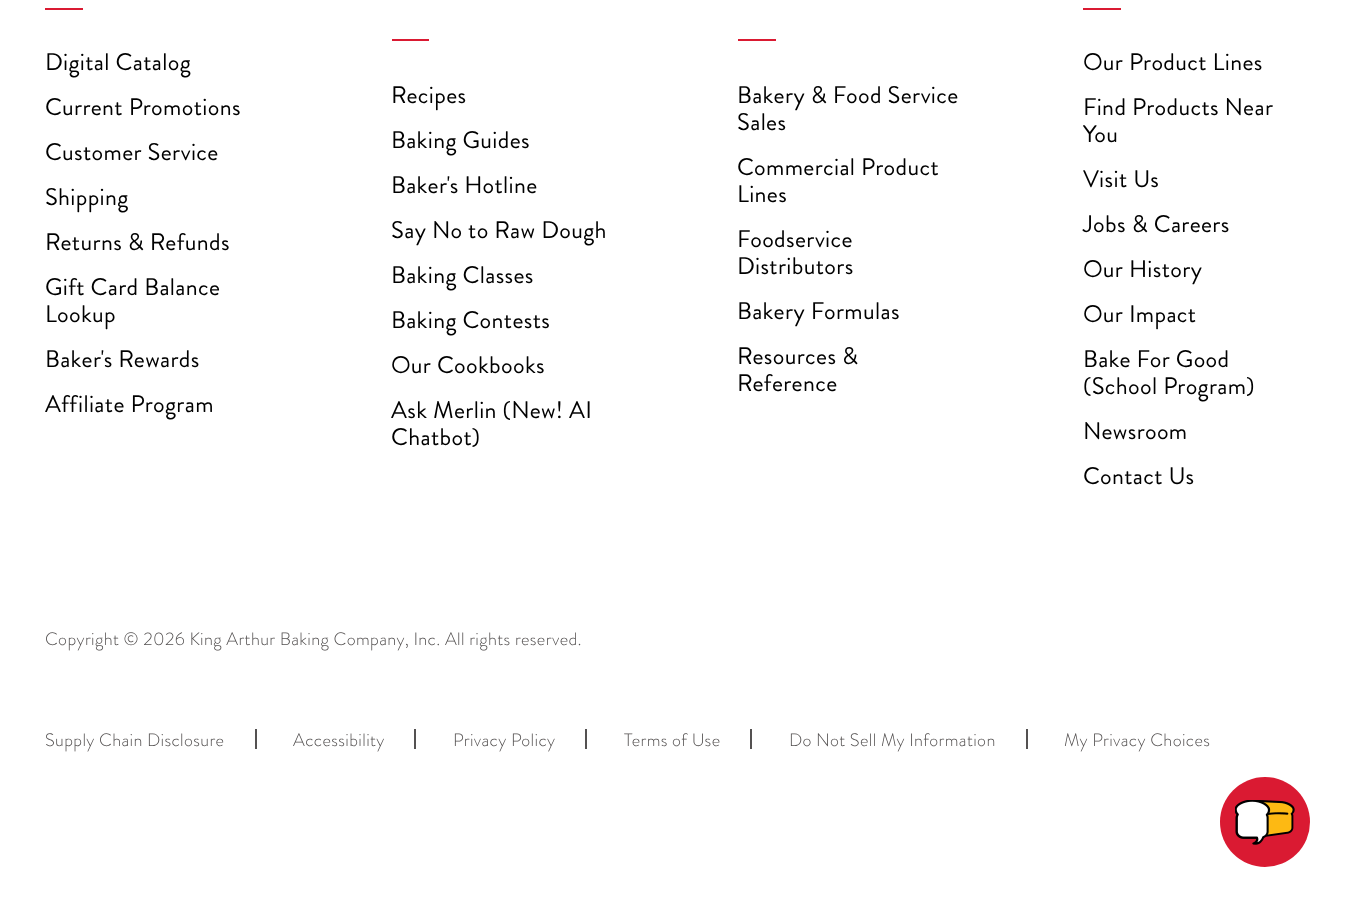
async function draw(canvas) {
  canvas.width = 1354
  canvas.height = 911
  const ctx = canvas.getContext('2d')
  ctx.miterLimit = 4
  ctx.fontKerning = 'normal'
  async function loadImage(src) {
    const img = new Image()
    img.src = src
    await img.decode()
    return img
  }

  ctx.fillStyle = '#fff'
  ctx.fillRect(0, 0, 1354, 911)
  ctx.fillStyle = '#da1a32'
  ctx.fillRect(45, 8, 38, 2)
  ctx.letterSpacing = '0.38px'
  ctx.font = '24px Brandon Grotesque'
  ctx.fillStyle = '#000'
  ctx.fillText('Digital Catalog', 45, 70)
  ctx.fillText('Current Promotions', 45, 115)
  ctx.fillText('Customer Service', 45, 160)
  ctx.fillText('Shipping', 45, 205)
  ctx.fillText('Returns & Refunds', 45, 250)
  ctx.fillText('Gift Card Balance', 45, 295)
  ctx.fillText('Lookup', 45, 322)
  ctx.fillText('Baker\'s Rewards', 45, 367)
  ctx.fillText('Affiliate Program', 45, 412)
  ctx.fillStyle = '#da1a32'
  ctx.fillRect(392, 39, 37, 2)
  ctx.fillStyle = '#000'
  ctx.fillText('Recipes', 391, 103)
  ctx.fillText('Baking Guides', 391, 148)
  ctx.fillText('Baker\'s Hotline', 391, 193)
  ctx.fillText('Say No to Raw Dough', 391, 238)
  ctx.fillText('Baking Classes', 391, 283)
  ctx.fillText('Baking Contests', 391, 328)
  ctx.fillText('Our Cookbooks', 391, 373)
  ctx.fillText('Ask Merlin (New! AI', 391, 418)
  ctx.fillText('Chatbot)', 391, 445)
  ctx.fillStyle = '#da1a32'
  ctx.fillRect(738, 39, 38, 2)
  ctx.fillStyle = '#000'
  ctx.fillText('Bakery & Food Service', 737, 103)
  ctx.fillText('Sales', 737, 130)
  ctx.fillText('Commercial Product', 737, 175)
  ctx.fillText('Lines', 737, 202)
  ctx.fillText('Foodservice', 737, 247)
  ctx.fillText('Distributors', 737, 274)
  ctx.fillText('Bakery Formulas', 737, 319)
  ctx.fillText('Resources &', 737, 364)
  ctx.fillText('Reference', 737, 391)
  ctx.fillStyle = '#da1a32'
  ctx.fillRect(1083, 8, 38, 2)
  ctx.fillStyle = '#000'
  ctx.fillText('Our Product Lines', 1083, 70)
  ctx.fillText('Find Products Near', 1083, 115)
  ctx.fillText('You', 1083, 142)
  ctx.fillText('Visit Us', 1083, 187)
  ctx.fillText('Jobs & Careers', 1083, 232)
  ctx.fillText('Our History', 1083, 277)
  ctx.fillText('Our Impact', 1083, 322)
  ctx.fillText('Bake For Good', 1083, 367)
  ctx.fillText('(School Program)', 1083, 394)
  ctx.fillText('Newsroom', 1083, 439)
  ctx.fillText('Contact Us', 1083, 484)
  ctx.font = '300 18px Brandon Grotesque'
  ctx.fillStyle = '#545151'
  ctx.fillText('Copyright © 2026 King Arthur Baking Company, Inc. All rights reserved.', 45, 645)
  ctx.fillRect(255, 729, 2, 20)
  ctx.fillText('Supply Chain Disclosure', 45, 746)
  ctx.fillRect(414, 729, 2, 20)
  ctx.fillText('Accessibility', 293, 746)
  ctx.fillRect(585, 729, 2, 20)
  ctx.fillText('Privacy Policy', 453, 746)
  ctx.fillRect(750, 729, 2, 20)
  ctx.fillText('Terms of Use', 624, 746)
  ctx.fillRect(1026, 729, 2, 20)
  ctx.fillText('Do Not Sell My Information', 789, 746)
  ctx.fillText('My Privacy Choices', 1064, 746)
  ctx.fillStyle = '#da1a32'
  ctx.beginPath()
  ctx.arc(1265, 822, 45, 0, 2 * Math.PI)
  ctx.fill()
  ctx.drawImage(await loadImage('image0.png'), 1235, 800, 60, 45)
}

draw(document.querySelector('canvas'))
